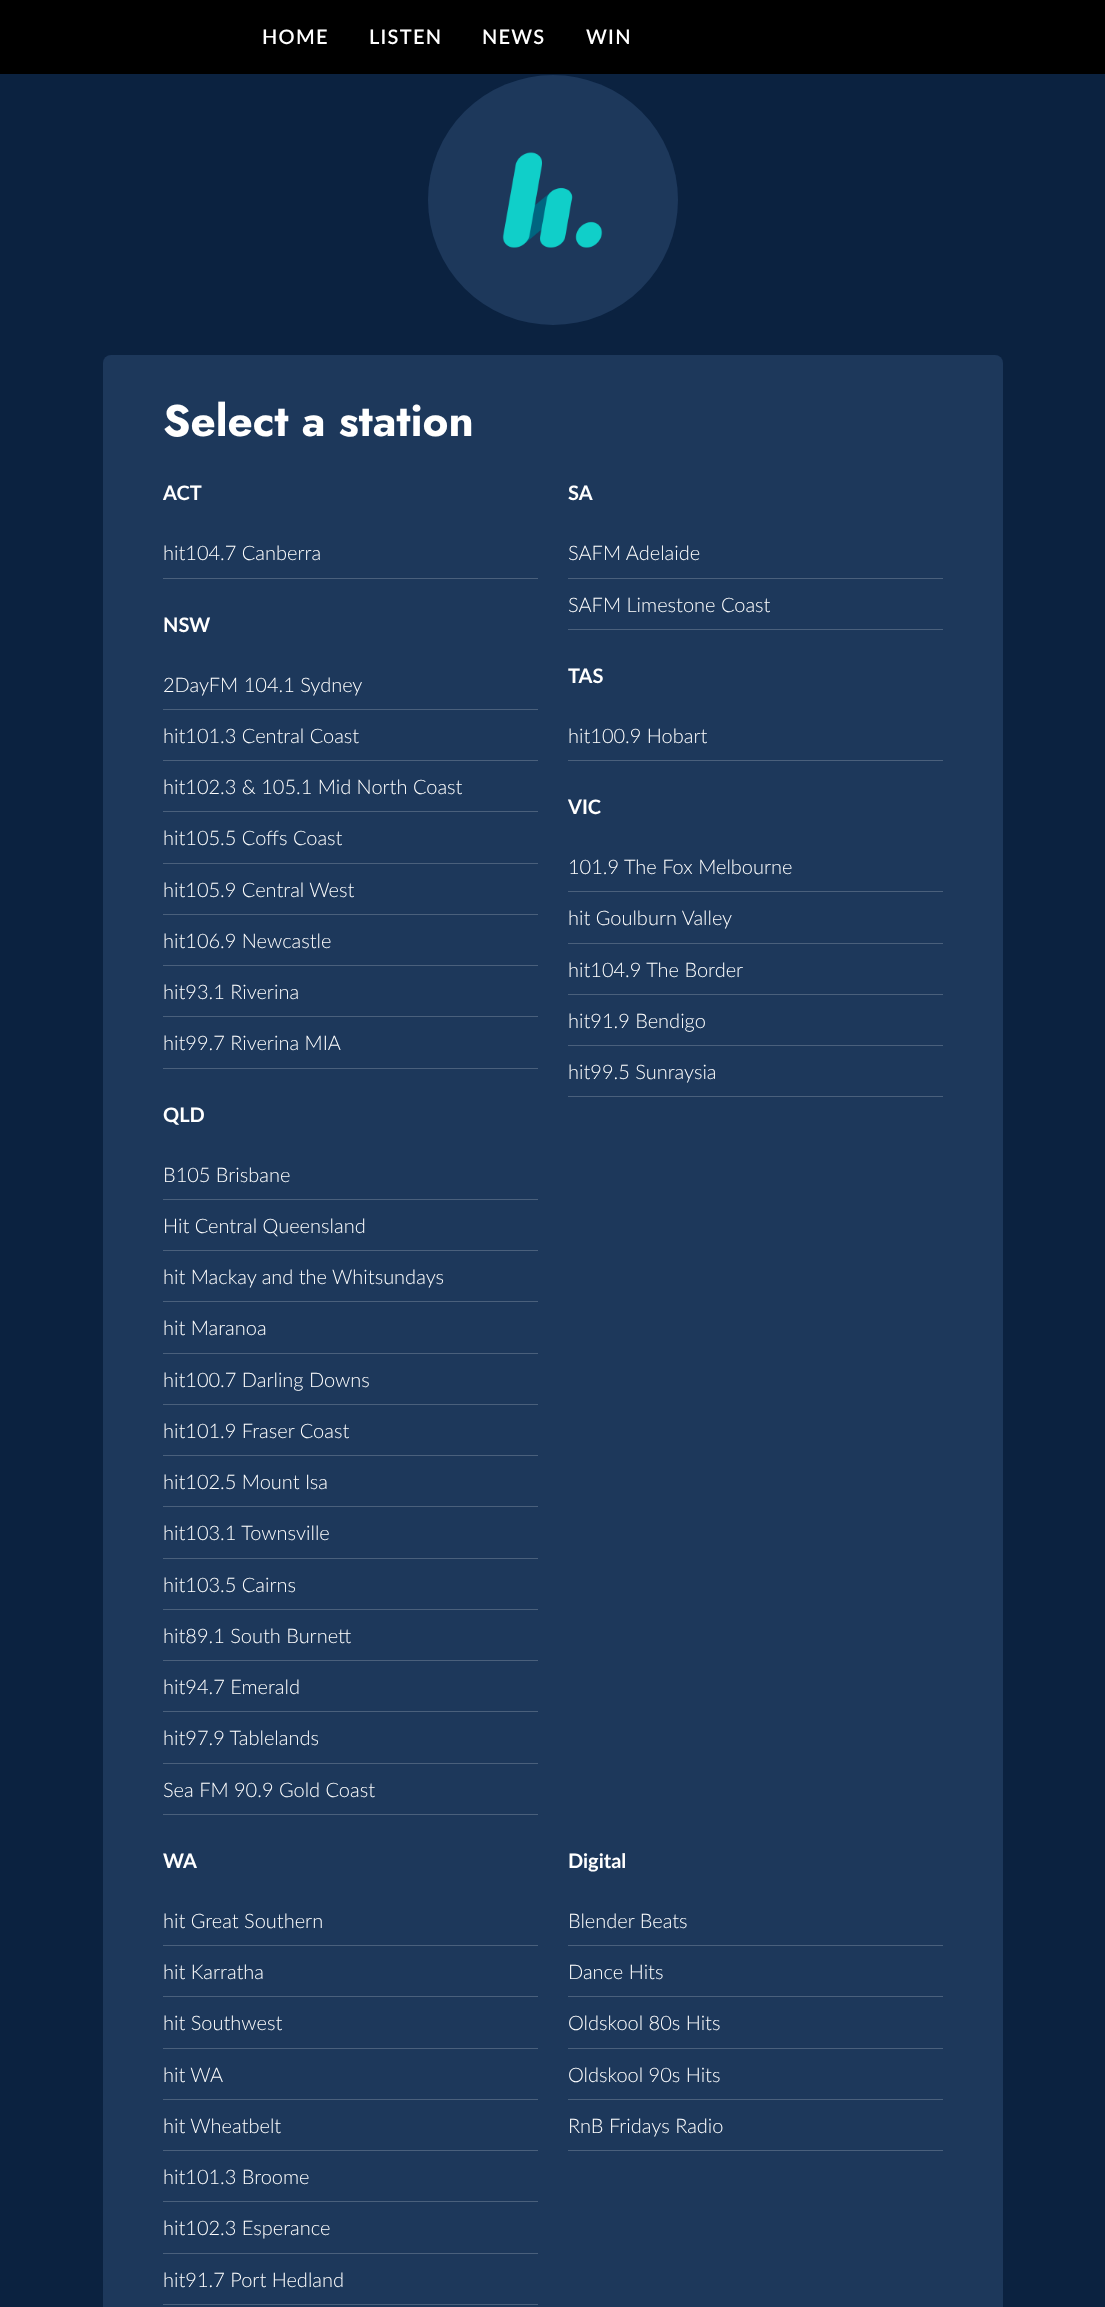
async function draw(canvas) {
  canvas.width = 1105
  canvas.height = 2307
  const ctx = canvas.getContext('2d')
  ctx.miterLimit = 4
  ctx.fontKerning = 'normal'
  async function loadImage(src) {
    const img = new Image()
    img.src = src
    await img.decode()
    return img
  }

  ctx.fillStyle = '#0b2240'
  ctx.fillRect(0, 0, 1105, 2307)
  ctx.fillStyle = '#000'
  ctx.fillRect(0, 0, 1105, 74)
  ctx.letterSpacing = '1.25px'
  ctx.font = '600 20px Lato'
  ctx.fillStyle = '#fff'
  ctx.fillText('HOME', 262, 44)
  ctx.fillText('LISTEN', 369, 44)
  ctx.fillText('NEWS', 482, 44)
  ctx.fillText('WIN', 586, 44)
  ctx.fillStyle = '#1d385b'
  ctx.beginPath()
  ctx.arc(553, 200, 125, 0, 2 * Math.PI)
  ctx.fill()
  ctx.drawImage(await loadImage('image0.png'), 502, 152, 101, 96)
  ctx.beginPath()
  ctx.roundRect(103, 355, 900, 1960, 8)
  ctx.fill()
  ctx.letterSpacing = '0px'
  ctx.font = 'bold 44px Jost'
  ctx.fillStyle = '#fff'
  ctx.fillText('Select a station', 163, 436)
  ctx.font = 'bold 20px Lato'
  ctx.fillText('ACT', 163, 500)
  ctx.fillStyle = '#4a607c'
  ctx.fillRect(163, 578, 375, 1)
  ctx.font = '300 20px Lato'
  ctx.fillStyle = '#fff'
  ctx.fillText('hit104.7 Canberra', 163, 560)
  ctx.font = 'bold 20px Lato'
  ctx.fillText('NSW', 163, 632)
  ctx.fillStyle = '#4a607c'
  ctx.fillRect(163, 709, 375, 1)
  ctx.font = '300 20px Lato'
  ctx.fillStyle = '#fff'
  ctx.fillText('2DayFM 104.1 Sydney', 163, 692)
  ctx.fillStyle = '#4a607c'
  ctx.fillRect(163, 760, 375, 1)
  ctx.fillStyle = '#fff'
  ctx.fillText('hit101.3 Central Coast', 163, 743)
  ctx.fillStyle = '#4a607c'
  ctx.fillRect(163, 811, 375, 1)
  ctx.fillStyle = '#fff'
  ctx.fillText('hit102.3 & 105.1 Mid North Coast', 163, 794)
  ctx.fillStyle = '#4a607c'
  ctx.fillRect(163, 863, 375, 1)
  ctx.fillStyle = '#fff'
  ctx.fillText('hit105.5 Coffs Coast', 163, 845)
  ctx.fillStyle = '#4a607c'
  ctx.fillRect(163, 914, 375, 1)
  ctx.fillStyle = '#fff'
  ctx.fillText('hit105.9 Central West', 163, 897)
  ctx.fillStyle = '#4a607c'
  ctx.fillRect(163, 965, 375, 1)
  ctx.fillStyle = '#fff'
  ctx.fillText('hit106.9 Newcastle', 163, 948)
  ctx.fillStyle = '#4a607c'
  ctx.fillRect(163, 1016, 375, 1)
  ctx.fillStyle = '#fff'
  ctx.fillText('hit93.1 Riverina', 163, 999)
  ctx.fillStyle = '#4a607c'
  ctx.fillRect(163, 1068, 375, 1)
  ctx.fillStyle = '#fff'
  ctx.fillText('hit99.7 Riverina MIA', 163, 1050)
  ctx.font = 'bold 20px Lato'
  ctx.fillText('QLD', 163, 1122)
  ctx.fillStyle = '#4a607c'
  ctx.fillRect(163, 1199, 375, 1)
  ctx.font = '300 20px Lato'
  ctx.fillStyle = '#fff'
  ctx.fillText('B105 Brisbane', 163, 1182)
  ctx.fillStyle = '#4a607c'
  ctx.fillRect(163, 1250, 375, 1)
  ctx.fillStyle = '#fff'
  ctx.fillText('Hit Central Queensland', 163, 1233)
  ctx.fillStyle = '#4a607c'
  ctx.fillRect(163, 1301, 375, 1)
  ctx.fillStyle = '#fff'
  ctx.fillText('hit Mackay and the Whitsundays', 163, 1284)
  ctx.fillStyle = '#4a607c'
  ctx.fillRect(163, 1353, 375, 1)
  ctx.fillStyle = '#fff'
  ctx.fillText('hit Maranoa', 163, 1335)
  ctx.fillStyle = '#4a607c'
  ctx.fillRect(163, 1404, 375, 1)
  ctx.fillStyle = '#fff'
  ctx.fillText('hit100.7 Darling Downs', 163, 1387)
  ctx.fillStyle = '#4a607c'
  ctx.fillRect(163, 1455, 375, 1)
  ctx.fillStyle = '#fff'
  ctx.fillText('hit101.9 Fraser Coast', 163, 1438)
  ctx.fillStyle = '#4a607c'
  ctx.fillRect(163, 1506, 375, 1)
  ctx.fillStyle = '#fff'
  ctx.fillText('hit102.5 Mount Isa', 163, 1489)
  ctx.fillStyle = '#4a607c'
  ctx.fillRect(163, 1558, 375, 1)
  ctx.fillStyle = '#fff'
  ctx.fillText('hit103.1 Townsville', 163, 1540)
  ctx.fillStyle = '#4a607c'
  ctx.fillRect(163, 1609, 375, 1)
  ctx.fillStyle = '#fff'
  ctx.fillText('hit103.5 Cairns', 163, 1592)
  ctx.fillStyle = '#4a607c'
  ctx.fillRect(163, 1660, 375, 1)
  ctx.fillStyle = '#fff'
  ctx.fillText('hit89.1 South Burnett', 163, 1643)
  ctx.fillStyle = '#4a607c'
  ctx.fillRect(163, 1711, 375, 1)
  ctx.fillStyle = '#fff'
  ctx.fillText('hit94.7 Emerald', 163, 1694)
  ctx.fillStyle = '#4a607c'
  ctx.fillRect(163, 1763, 375, 1)
  ctx.fillStyle = '#fff'
  ctx.fillText('hit97.9 Tablelands', 163, 1745)
  ctx.fillStyle = '#4a607c'
  ctx.fillRect(163, 1814, 375, 1)
  ctx.fillStyle = '#fff'
  ctx.fillText('Sea FM 90.9 Gold Coast', 163, 1797)
  ctx.font = 'bold 20px Lato'
  ctx.fillText('SA', 568, 500)
  ctx.fillStyle = '#4a607c'
  ctx.fillRect(568, 578, 375, 1)
  ctx.font = '300 20px Lato'
  ctx.fillStyle = '#fff'
  ctx.fillText('SAFM Adelaide', 568, 560)
  ctx.fillStyle = '#4a607c'
  ctx.fillRect(568, 629, 375, 1)
  ctx.fillStyle = '#fff'
  ctx.fillText('SAFM Limestone Coast', 568, 612)
  ctx.font = 'bold 20px Lato'
  ctx.fillText('TAS', 568, 683)
  ctx.fillStyle = '#4a607c'
  ctx.fillRect(568, 760, 375, 1)
  ctx.font = '300 20px Lato'
  ctx.fillStyle = '#fff'
  ctx.fillText('hit100.9 Hobart', 568, 743)
  ctx.font = 'bold 20px Lato'
  ctx.fillText('VIC', 568, 814)
  ctx.fillStyle = '#4a607c'
  ctx.fillRect(568, 891, 375, 1)
  ctx.font = '300 20px Lato'
  ctx.fillStyle = '#fff'
  ctx.fillText('101.9 The Fox Melbourne', 568, 874)
  ctx.fillStyle = '#4a607c'
  ctx.fillRect(568, 943, 375, 1)
  ctx.fillStyle = '#fff'
  ctx.fillText('hit Goulburn Valley', 568, 925)
  ctx.fillStyle = '#4a607c'
  ctx.fillRect(568, 994, 375, 1)
  ctx.fillStyle = '#fff'
  ctx.fillText('hit104.9 The Border', 568, 977)
  ctx.fillStyle = '#4a607c'
  ctx.fillRect(568, 1045, 375, 1)
  ctx.fillStyle = '#fff'
  ctx.fillText('hit91.9 Bendigo', 568, 1028)
  ctx.fillStyle = '#4a607c'
  ctx.fillRect(568, 1096, 375, 1)
  ctx.fillStyle = '#fff'
  ctx.fillText('hit99.5 Sunraysia', 568, 1079)
  ctx.font = 'bold 20px Lato'
  ctx.fillText('WA', 163, 1868)
  ctx.fillStyle = '#4a607c'
  ctx.fillRect(163, 1945, 375, 1)
  ctx.font = '300 20px Lato'
  ctx.fillStyle = '#fff'
  ctx.fillText('hit Great Southern', 163, 1928)
  ctx.fillStyle = '#4a607c'
  ctx.fillRect(163, 1996, 375, 1)
  ctx.fillStyle = '#fff'
  ctx.fillText('hit Karratha', 163, 1979)
  ctx.fillStyle = '#4a607c'
  ctx.fillRect(163, 2048, 375, 1)
  ctx.fillStyle = '#fff'
  ctx.fillText('hit Southwest', 163, 2030)
  ctx.fillStyle = '#4a607c'
  ctx.fillRect(163, 2099, 375, 1)
  ctx.fillStyle = '#fff'
  ctx.fillText('hit WA', 163, 2082)
  ctx.fillStyle = '#4a607c'
  ctx.fillRect(163, 2150, 375, 1)
  ctx.fillStyle = '#fff'
  ctx.fillText('hit Wheatbelt', 163, 2133)
  ctx.fillStyle = '#4a607c'
  ctx.fillRect(163, 2201, 375, 1)
  ctx.fillStyle = '#fff'
  ctx.fillText('hit101.3 Broome', 163, 2184)
  ctx.fillStyle = '#4a607c'
  ctx.fillRect(163, 2253, 375, 1)
  ctx.fillStyle = '#fff'
  ctx.fillText('hit102.3 Esperance', 163, 2235)
  ctx.fillStyle = '#4a607c'
  ctx.fillRect(163, 2304, 375, 1)
  ctx.fillStyle = '#fff'
  ctx.fillText('hit91.7 Port Hedland', 163, 2287)
  ctx.font = 'bold 20px Lato'
  ctx.fillText('Digital', 568, 1868)
  ctx.fillStyle = '#4a607c'
  ctx.fillRect(568, 1945, 375, 1)
  ctx.font = '300 20px Lato'
  ctx.fillStyle = '#fff'
  ctx.fillText('Blender Beats', 568, 1928)
  ctx.fillStyle = '#4a607c'
  ctx.fillRect(568, 1996, 375, 1)
  ctx.fillStyle = '#fff'
  ctx.fillText('Dance Hits', 568, 1979)
  ctx.fillStyle = '#4a607c'
  ctx.fillRect(568, 2048, 375, 1)
  ctx.fillStyle = '#fff'
  ctx.fillText('Oldskool 80s Hits', 568, 2030)
  ctx.fillStyle = '#4a607c'
  ctx.fillRect(568, 2099, 375, 1)
  ctx.fillStyle = '#fff'
  ctx.fillText('Oldskool 90s Hits', 568, 2082)
  ctx.fillStyle = '#4a607c'
  ctx.fillRect(568, 2150, 375, 1)
  ctx.fillStyle = '#fff'
  ctx.fillText('RnB Fridays Radio', 568, 2133)
}

draw(document.querySelector('canvas'))
